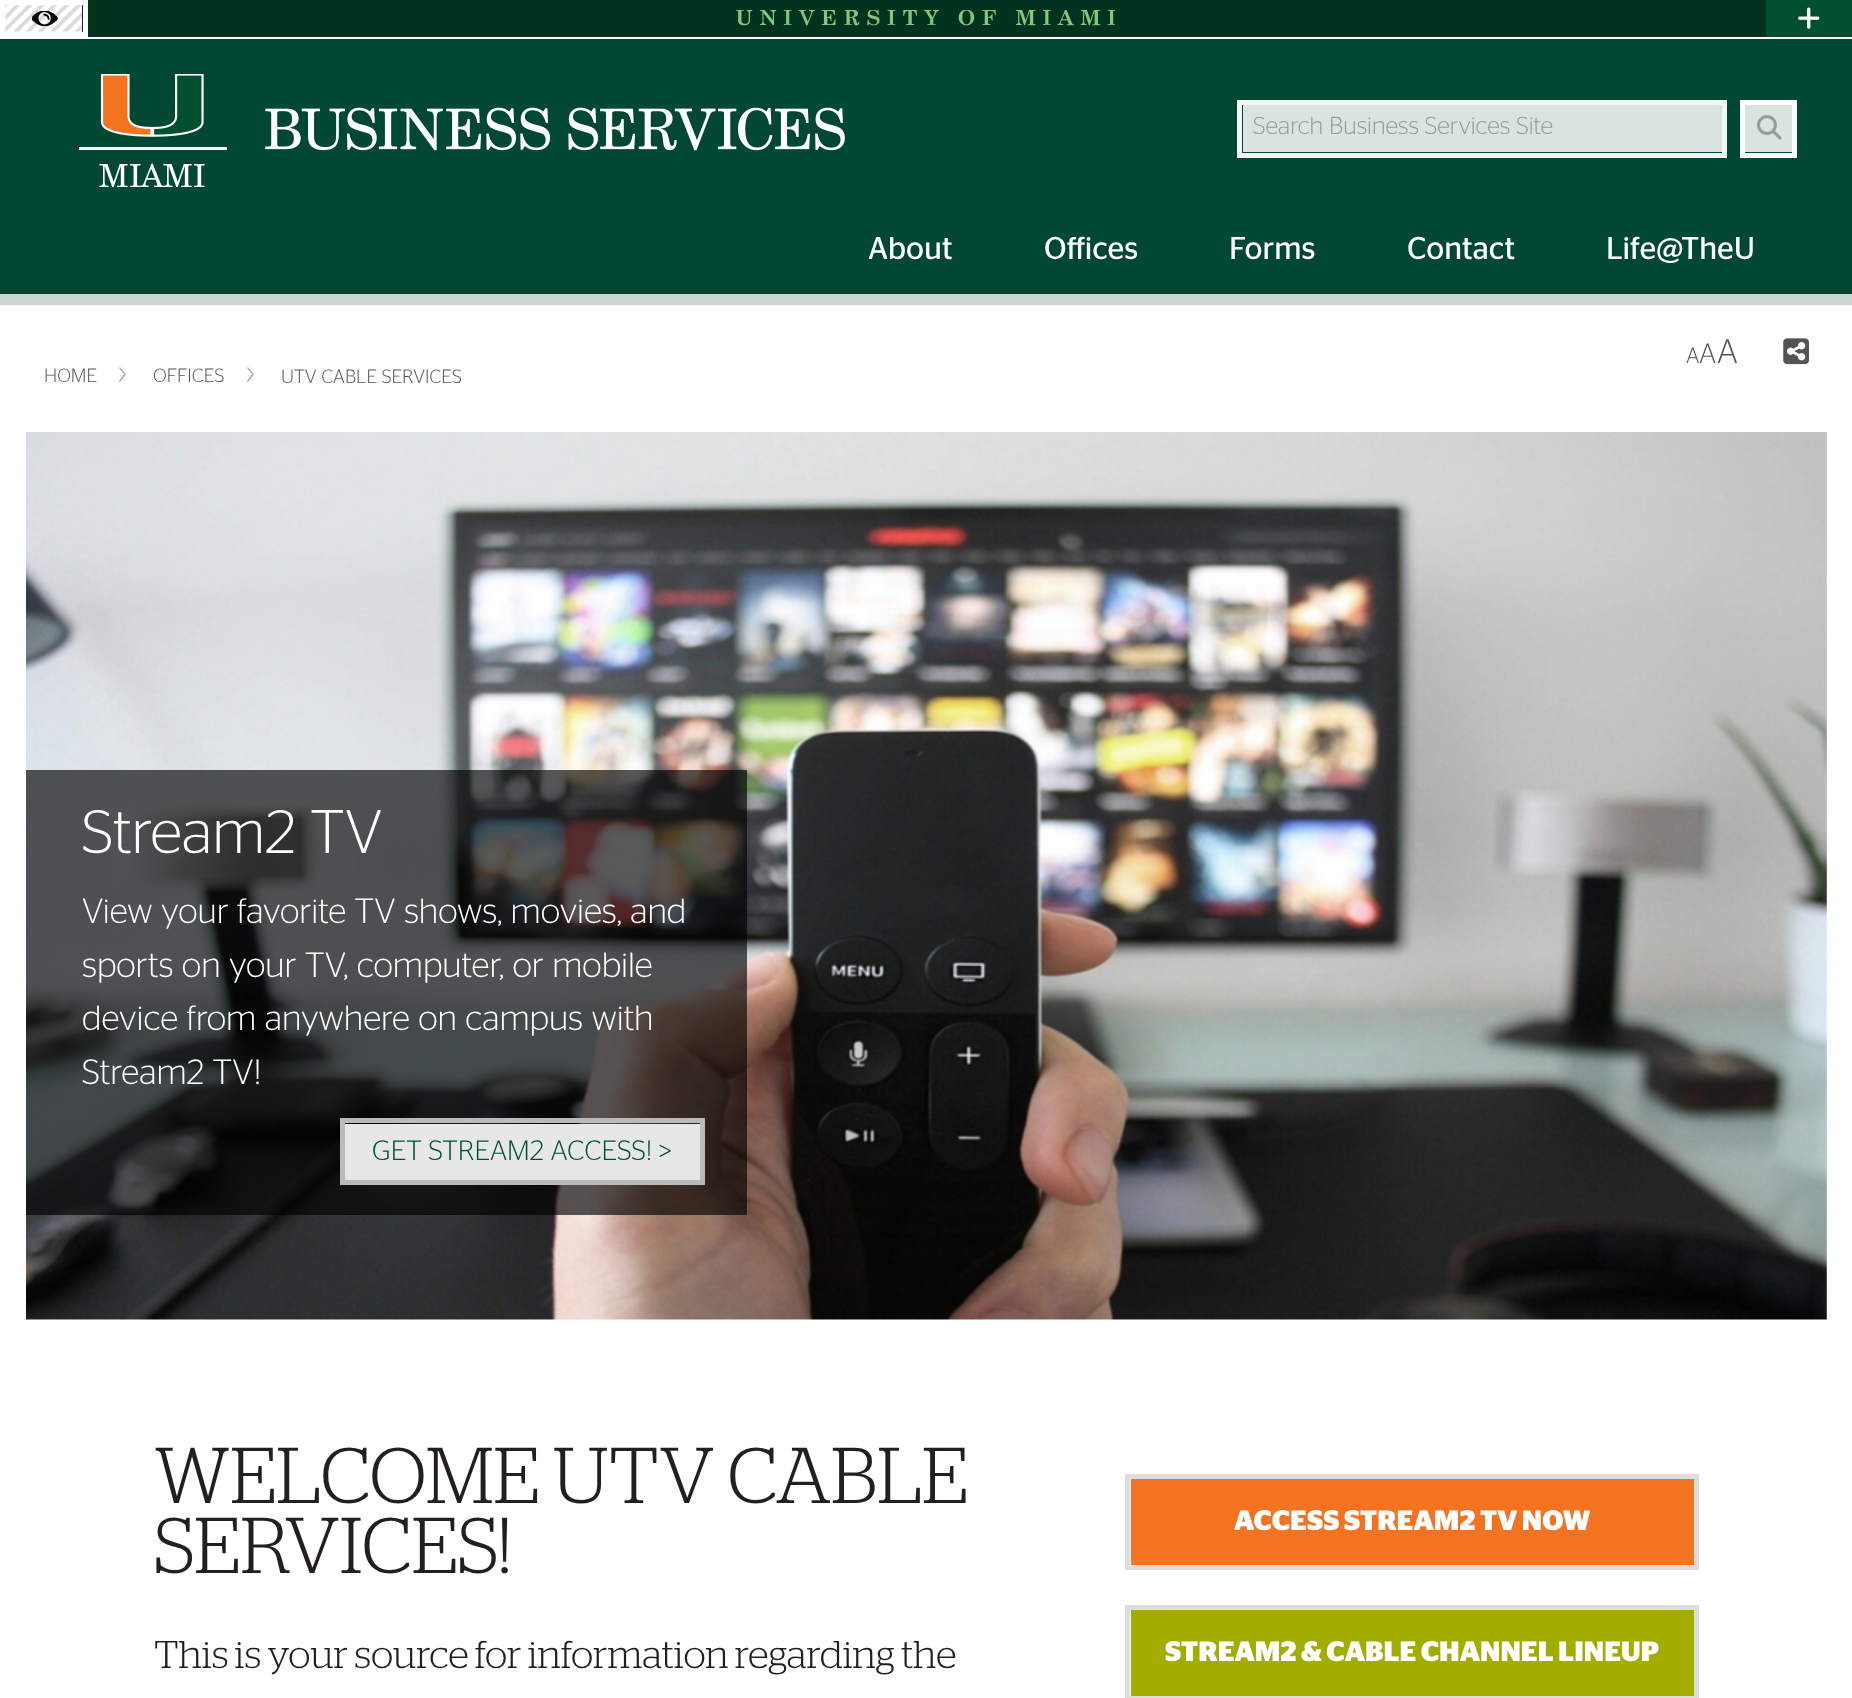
async function draw(canvas) {
  canvas.width = 1852
  canvas.height = 1698
  const ctx = canvas.getContext('2d')
  ctx.miterLimit = 4
  ctx.fontKerning = 'normal'
  async function loadImage(src) {
    const img = new Image()
    img.src = src
    await img.decode()
    return img
  }

  ctx.fillStyle = '#fff'
  ctx.fillRect(0, 0, 1852, 1698)
  ctx.fillStyle = '#01321e'
  ctx.fillRect(82, 0, 1684, 37)
  ctx.drawImage(await loadImage('image0.png'), 5, 5, 77, 27)
  ctx.strokeStyle = '#fff'
  ctx.lineWidth = 5
  ctx.strokeRect(2.5, 2.5, 83, 32)
  ctx.drawImage(await loadImage('image1.png'), 32, 11, 26, 15)
  ctx.drawImage(await loadImage('image2.png'), 736, 10, 379, 16)
  ctx.fillStyle = '#005030'
  ctx.beginPath()
  ctx.rect(1768.5, 2.5, 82, 32)
  ctx.fill()
  ctx.strokeStyle = '#005030'
  ctx.stroke()
  ctx.drawImage(await loadImage('image3.png'), 1798, 7, 22, 22)
  ctx.fillStyle = '#ccd6d2'
  ctx.fillRect(0, 294, 1852, 11)
  ctx.fillStyle = '#004833'
  ctx.fillRect(0, 39, 1852, 255)
  ctx.drawImage(await loadImage('image4.png'), 79, 74, 766, 113)
  ctx.fillStyle = '#d9e4e0'
  ctx.fillRect(1243, 105, 479, 47)
  ctx.strokeStyle = '#f2f6f5'
  ctx.strokeRect(1239.5, 102.5, 485, 53)
  ctx.font = '300 24.5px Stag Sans'
  ctx.fillStyle = '#999'
  ctx.fillText('Search Business Services Site', 1253, 134)
  ctx.fillStyle = '#d9e4e0'
  ctx.fillRect(1745, 105, 47, 47)
  ctx.strokeStyle = '#fff'
  ctx.strokeRect(1742.5, 102.5, 52, 53)
  ctx.drawImage(await loadImage('image5.png'), 1757, 115, 25, 25)
  ctx.font = '31.5px Stag Sans'
  ctx.fillStyle = '#fff'
  ctx.fillText('About', 868, 259)
  ctx.fillText('Offices', 1044, 259)
  ctx.fillText('Forms', 1229, 259)
  ctx.fillText('Contact', 1407, 259)
  ctx.fillText('Life@TheU', 1606, 259)
  ctx.font = '300 22px Stag Sans'
  ctx.fillStyle = '#545454'
  ctx.fillText('A', 1686, 363)
  ctx.font = '300 28px Stag Sans'
  ctx.fillText('A', 1699, 363)
  ctx.font = '300 34px Stag Sans'
  ctx.fillText('A', 1717, 363)
  ctx.drawImage(await loadImage('image6.png'), 1783, 338, 26, 27)
  ctx.font = '300 19.25px Stag Sans'
  ctx.fillText('HOME', 44, 382)
  ctx.font = '300 33px Stag Sans'
  ctx.fillStyle = '#aaa'
  ctx.fillText('›', 118, 383)
  ctx.font = '300 19.25px Stag Sans'
  ctx.fillStyle = '#545454'
  ctx.fillText('OFFICES', 153, 382)
  ctx.font = '300 33px Stag Sans'
  ctx.fillStyle = '#aaa'
  ctx.fillText('›', 246, 383)
  ctx.font = '300 19.25px Stag Sans'
  ctx.fillStyle = '#545454'
  ctx.fillText('UTV CABLE SERVICES', 281, 383)
  ctx.drawImage(await loadImage('image7.png'), 26, 432, 1801, 888)
  ctx.fillStyle = '#000000a6'
  ctx.fillRect(26, 770, 721, 445)
  ctx.font = '300 61.25px Stag Sans'
  ctx.fillStyle = '#fff'
  ctx.fillText('Stream2 TV', 82, 853)
  ctx.font = '300 35px Stag Sans'
  ctx.fillText('View your favorite TV shows, movies, and', 82, 923)
  ctx.fillText('sports on your TV, computer, or mobile', 82, 977)
  ctx.fillText('device from anywhere on campus with', 82, 1030)
  ctx.fillText('Stream2 TV!', 82, 1084)
  ctx.fillStyle = '#e7e7e7'
  ctx.fillRect(345, 1124, 355, 56)
  ctx.strokeStyle = '#bababa'
  ctx.strokeRect(342.5, 1120.5, 360, 62)
  ctx.font = '300 28px Stag Sans'
  ctx.fillStyle = '#005030'
  ctx.fillText('GET STREAM2 ACCESS! >', 372, 1160)
  ctx.font = '300 78.75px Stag'
  ctx.fillStyle = '#231f20'
  ctx.fillText('WELCOME UTV CABLE', 154, 1503)
  ctx.fillText('SERVICES!', 154, 1573)
  ctx.font = '300 38.5px Stag'
  ctx.fillText('This is your source for information regarding the', 154, 1668)
  ctx.fillStyle = '#f47321'
  ctx.fillRect(1131, 1479, 563, 86)
  ctx.strokeStyle = '#ddd'
  ctx.strokeRect(1127.5, 1476.5, 569, 91)
  ctx.font = 'bold 28px Stag Sans'
  ctx.fillStyle = '#fff'
  ctx.fillText('ACCESS STREAM2 TV NOW', 1234, 1530)
  ctx.fillStyle = '#a2ad00'
  ctx.fillRect(1131, 1610, 563, 86)
  ctx.strokeRect(1127.5, 1607.5, 569, 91)
  ctx.fillStyle = '#fff'
  ctx.fillText('STREAM2 & CABLE CHANNEL LINEUP', 1165, 1661)
}

draw(document.querySelector('canvas'))
